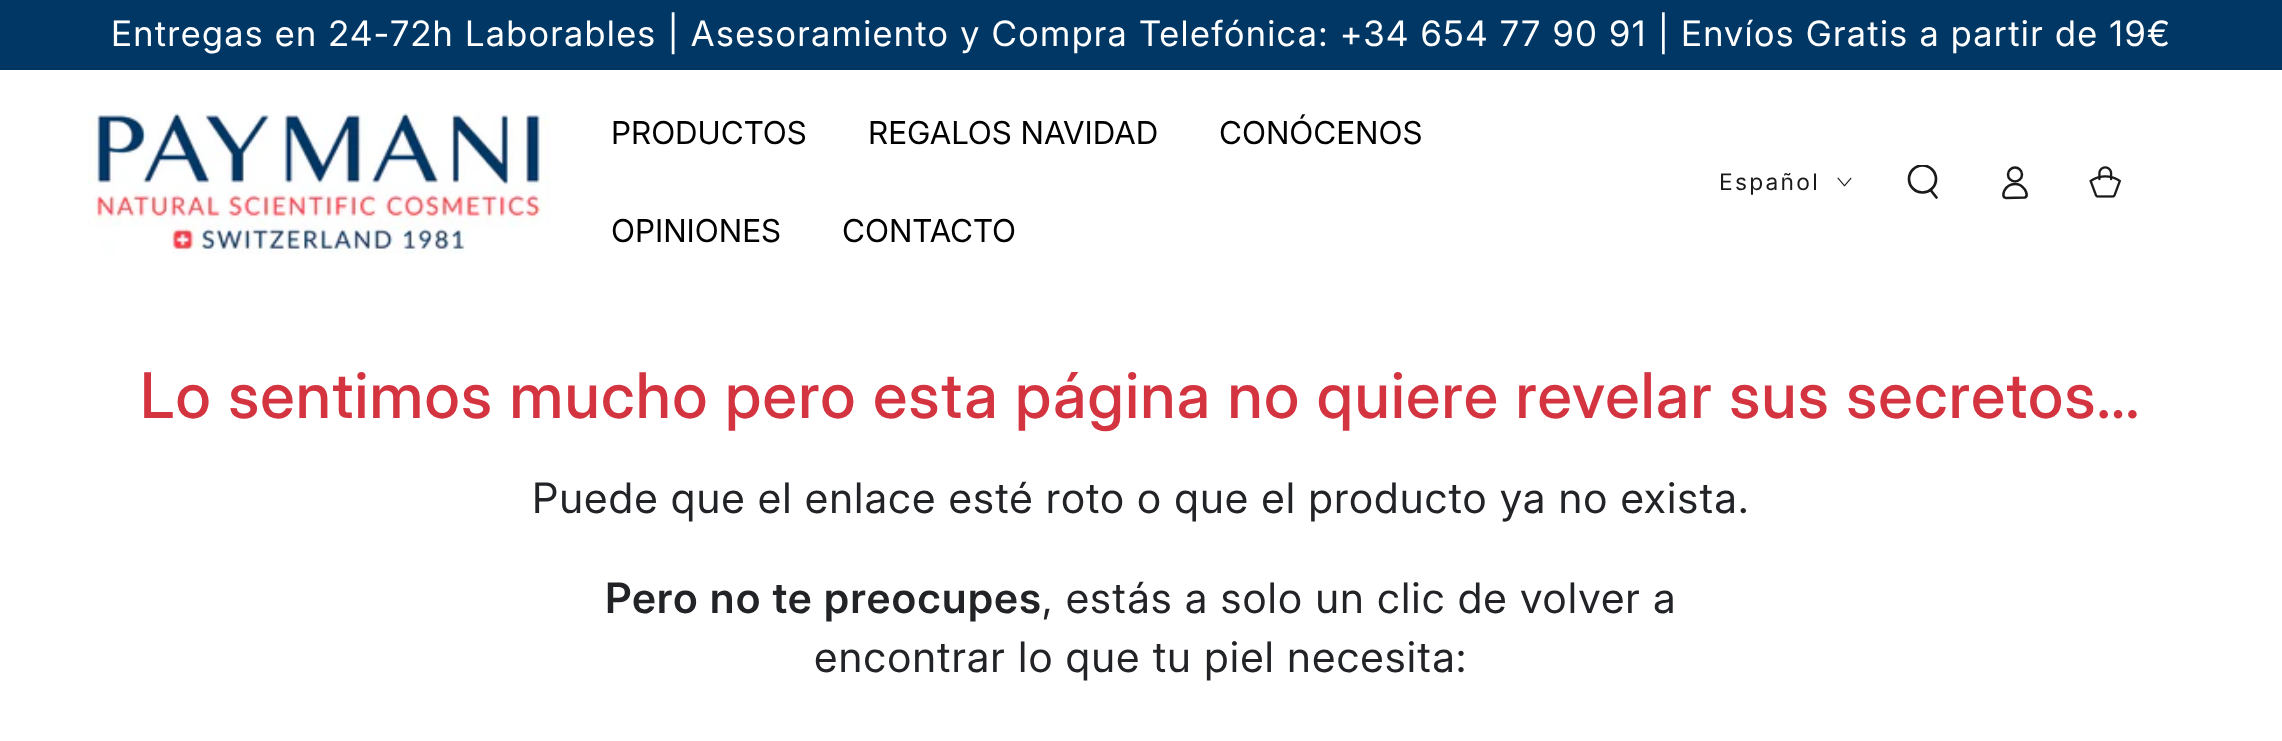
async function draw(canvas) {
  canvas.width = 2282
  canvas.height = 741
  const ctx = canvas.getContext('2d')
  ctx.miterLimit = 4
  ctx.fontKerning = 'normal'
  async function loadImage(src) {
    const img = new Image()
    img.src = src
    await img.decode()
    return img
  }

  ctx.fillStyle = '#fff'
  ctx.fillRect(0, 0, 2282, 741)
  ctx.fillStyle = '#003764'
  ctx.fillRect(0, 0, 2282, 70)
  ctx.letterSpacing = '1.36px'
  ctx.font = '35px "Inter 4"'
  ctx.fillStyle = '#fff'
  ctx.fillText('Entregas en 24-72h Laborables | Asesoramiento y Compra Telefónica: +34 654 77 90 91 | Envíos Gratis a partir de 19€', 111, 46)
  ctx.drawImage(await loadImage('image0.png'), 87, 112, 463, 142)
  ctx.letterSpacing = '0px'
  ctx.font = '31.5px "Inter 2"'
  ctx.fillStyle = '#000'
  ctx.fillText('PRODUCTOS', 611, 144)
  ctx.fillText('REGALOS NAVIDAD', 868, 144)
  ctx.fillText('CONÓCENOS', 1219, 144)
  ctx.fillText('OPINIONES', 611, 242)
  ctx.fillText('CONTACTO', 842, 242)
  ctx.letterSpacing = '2.25px'
  ctx.font = '22.75px "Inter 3"'
  ctx.fillStyle = '#1a1a1a'
  ctx.fillText('Español', 1719, 190)
  ctx.drawImage(await loadImage('image1.png'), 1837, 177, 15, 10)
  ctx.save()
  ctx.beginPath()
  ctx.rect(1906, 165, 35, 35)
  ctx.clip()
  ctx.beginPath()
  ctx.arc(1922.5, 179, 13.5, 0, 2 * Math.PI)
  ctx.strokeStyle = '#1a1a1a'
  ctx.lineWidth = 2.7
  ctx.stroke()
  ctx.restore()
  ctx.beginPath()
  ctx.moveTo(1930.5, 190)
  ctx.lineTo(1936.5, 197.5)
  ctx.strokeStyle = '#1a1a1a'
  ctx.lineWidth = 2.7
  ctx.lineCap = 'round'
  ctx.stroke()
  ctx.beginPath()
  ctx.moveTo(2015, 184)
  ctx.bezierCurveTo(2004.5, 184, 2000, 197.5, 2006, 198)
  ctx.lineTo(2025, 197.5)
  ctx.bezierCurveTo(2029, 196, 2025, 189, 2023, 187.5)
  ctx.bezierCurveTo(2021, 185, 2018, 184, 2015, 184)
  ctx.closePath()
  ctx.lineWidth = 2.5
  ctx.lineCap = 'butt'
  ctx.stroke()
  ctx.beginPath()
  ctx.arc(2015, 174.5, 7, 0, 2 * Math.PI)
  ctx.stroke()
  ctx.drawImage(await loadImage('image2.png'), 2089, 166, 33, 32)
  ctx.letterSpacing = '1.25px'
  ctx.font = '500 63px Inter'
  ctx.fillStyle = '#d33440'
  ctx.fillText('Lo sentimos mucho pero esta página no quiere revelar sus secretos…', 140, 418)
  ctx.letterSpacing = '1.05px'
  ctx.font = '42px Inter'
  ctx.fillStyle = '#212326'
  ctx.fillText('Puede que el enlace esté roto o que el producto ya no exista.', 532, 513)
  ctx.font = '600 42px Inter'
  ctx.fillText('Pero no te preocupes', 605, 613)
  ctx.font = '42px Inter'
  ctx.fillText(', estás a solo un clic de volver a', 1042, 613)
  ctx.fillText('encontrar lo que tu piel necesita:', 814, 672)
}

draw(document.querySelector('canvas'))
